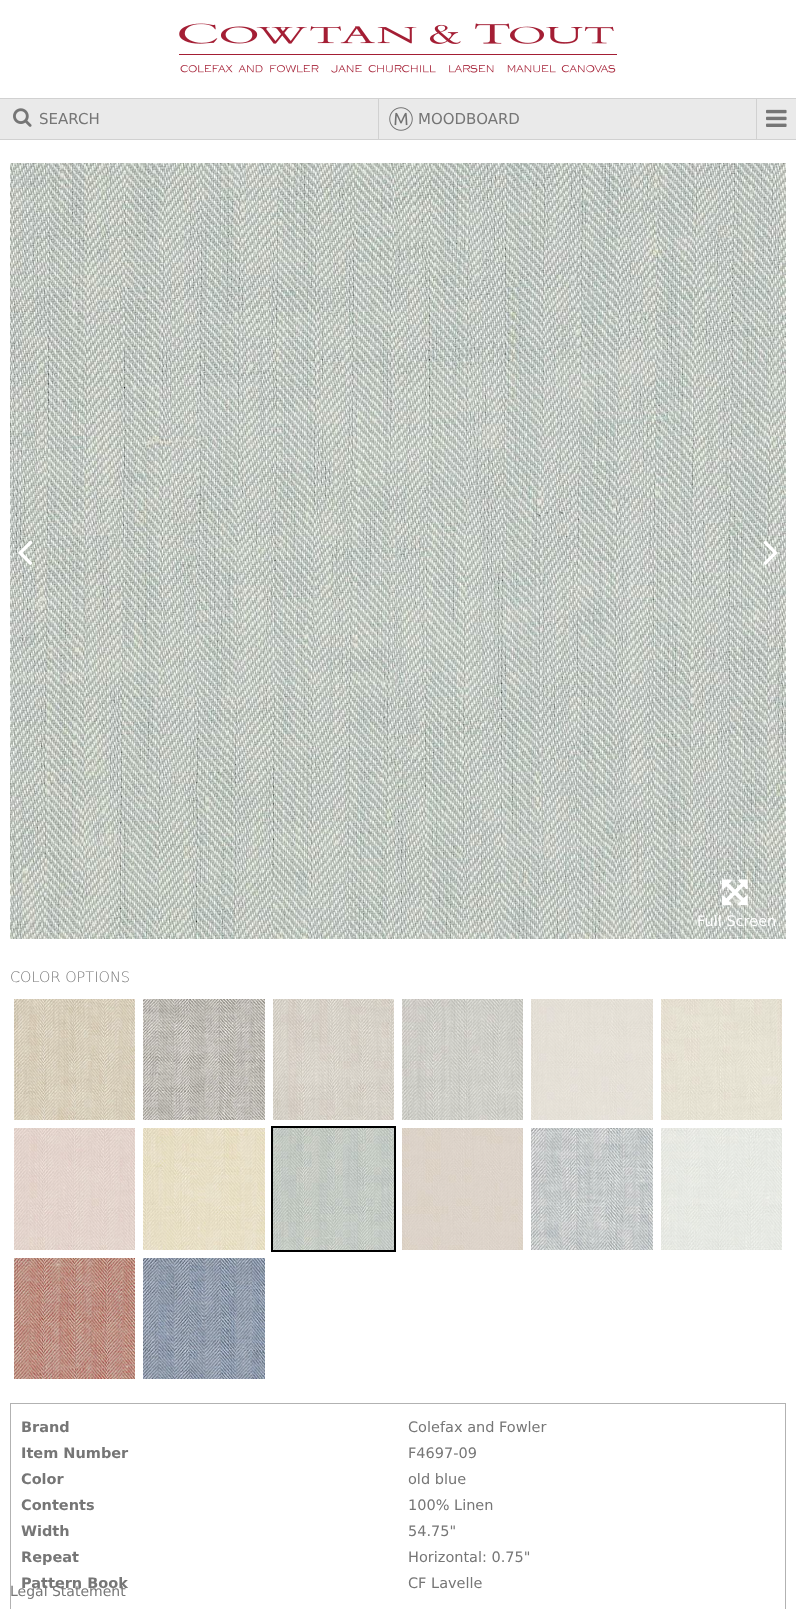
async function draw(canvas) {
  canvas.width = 796
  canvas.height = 1609
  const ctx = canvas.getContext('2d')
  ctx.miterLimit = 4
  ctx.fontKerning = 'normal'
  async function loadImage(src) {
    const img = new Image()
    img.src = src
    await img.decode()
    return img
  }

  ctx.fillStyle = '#fff'
  ctx.fillRect(0, 0, 796, 1609)
  ctx.drawImage(await loadImage('image0.png'), 179, 23, 438, 50)
  ctx.fillStyle = '#eaeaea'
  ctx.fillRect(0, 99, 796, 40)
  ctx.fillStyle = '#d1d1d1'
  ctx.fillRect(0, 98, 796, 1)
  ctx.fillRect(0, 139, 796, 1)
  ctx.drawImage(await loadImage('image1.png'), 13, 108, 19, 19)
  ctx.font = '15px DejaVu Sans'
  ctx.fillStyle = '#767676'
  ctx.fillText('SEARCH', 39, 124)
  ctx.fillStyle = '#d1d1d1'
  ctx.fillRect(378, 99, 1, 40)
  ctx.drawImage(await loadImage('image2.png'), 389, 107, 24, 24)
  ctx.fillStyle = '#767676'
  ctx.fillText('MOODBOARD', 418, 124)
  ctx.fillStyle = '#d1d1d1'
  ctx.fillRect(756, 99, 1, 40)
  ctx.drawImage(await loadImage('image3.png'), 766, 109, 21, 18)
  ctx.drawImage(await loadImage('image6.png'), 10, 163, 776, 776)
  ctx.drawImage(await loadImage('image4.png'), 18, 540, 15, 25)
  ctx.drawImage(await loadImage('image5.png'), 763, 540, 15, 25)
  ctx.drawImage(await loadImage('image7.png'), 722, 879, 26, 27)
  ctx.font = '14.5px DejaVu Sans'
  ctx.fillStyle = '#fff'
  ctx.fillText('Full Screen', 697, 926)
  ctx.font = '200 14.5px DejaVu Sans'
  ctx.fillStyle = '#767676'
  ctx.fillText('COLOR OPTIONS', 10, 982)
  ctx.drawImage(await loadImage('image8.png'), 14, 999, 121, 121)
  ctx.drawImage(await loadImage('image9.png'), 143, 999, 122, 121)
  ctx.drawImage(await loadImage('image10.png'), 273, 999, 121, 121)
  ctx.drawImage(await loadImage('image11.png'), 402, 999, 121, 121)
  ctx.drawImage(await loadImage('image12.png'), 531, 999, 122, 121)
  ctx.drawImage(await loadImage('image13.png'), 661, 999, 121, 121)
  ctx.drawImage(await loadImage('image14.png'), 14, 1128, 121, 122)
  ctx.drawImage(await loadImage('image15.png'), 143, 1128, 122, 122)
  ctx.strokeStyle = '#000'
  ctx.lineWidth = 2
  ctx.strokeRect(272, 1127, 123, 124)
  ctx.drawImage(await loadImage('image16.png'), 273, 1128, 121, 122)
  ctx.drawImage(await loadImage('image17.png'), 402, 1128, 121, 122)
  ctx.drawImage(await loadImage('image18.png'), 531, 1128, 122, 122)
  ctx.drawImage(await loadImage('image19.png'), 661, 1128, 121, 122)
  ctx.drawImage(await loadImage('image20.png'), 14, 1258, 121, 121)
  ctx.drawImage(await loadImage('image21.png'), 143, 1258, 122, 121)
  ctx.strokeStyle = '#b2b2b2'
  ctx.lineWidth = 1
  ctx.strokeRect(10.5, 1403.5, 775, 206)
  ctx.font = 'bold 14.5px DejaVu Sans'
  ctx.fillText('Brand', 21, 1432)
  ctx.font = '14.5px DejaVu Sans'
  ctx.fillText('Colefax and Fowler', 408, 1432)
  ctx.font = 'bold 14.5px DejaVu Sans'
  ctx.fillText('Item Number', 21, 1458)
  ctx.font = '14.5px DejaVu Sans'
  ctx.fillText('F4697-09', 408, 1458)
  ctx.font = 'bold 14.5px DejaVu Sans'
  ctx.fillText('Color', 21, 1484)
  ctx.font = '14.5px DejaVu Sans'
  ctx.fillText('old blue', 408, 1484)
  ctx.font = 'bold 14.5px DejaVu Sans'
  ctx.fillText('Contents', 21, 1510)
  ctx.font = '14.5px DejaVu Sans'
  ctx.fillText('100% Linen', 408, 1510)
  ctx.font = 'bold 14.5px DejaVu Sans'
  ctx.fillText('Width', 21, 1536)
  ctx.font = '14.5px DejaVu Sans'
  ctx.fillText('54.75"', 408, 1536)
  ctx.font = 'bold 14.5px DejaVu Sans'
  ctx.fillText('Repeat', 21, 1562)
  ctx.font = '14.5px DejaVu Sans'
  ctx.fillText('Horizontal: 0.75"', 408, 1562)
  ctx.font = 'bold 14.5px DejaVu Sans'
  ctx.fillText('Pattern Book', 21, 1588)
  ctx.font = '14.5px DejaVu Sans'
  ctx.fillText('CF Lavelle', 408, 1588)
  ctx.font = '14px DejaVu Sans'
  ctx.fillText('Legal Statement', 10, 1596)
}

draw(document.querySelector('canvas'))
